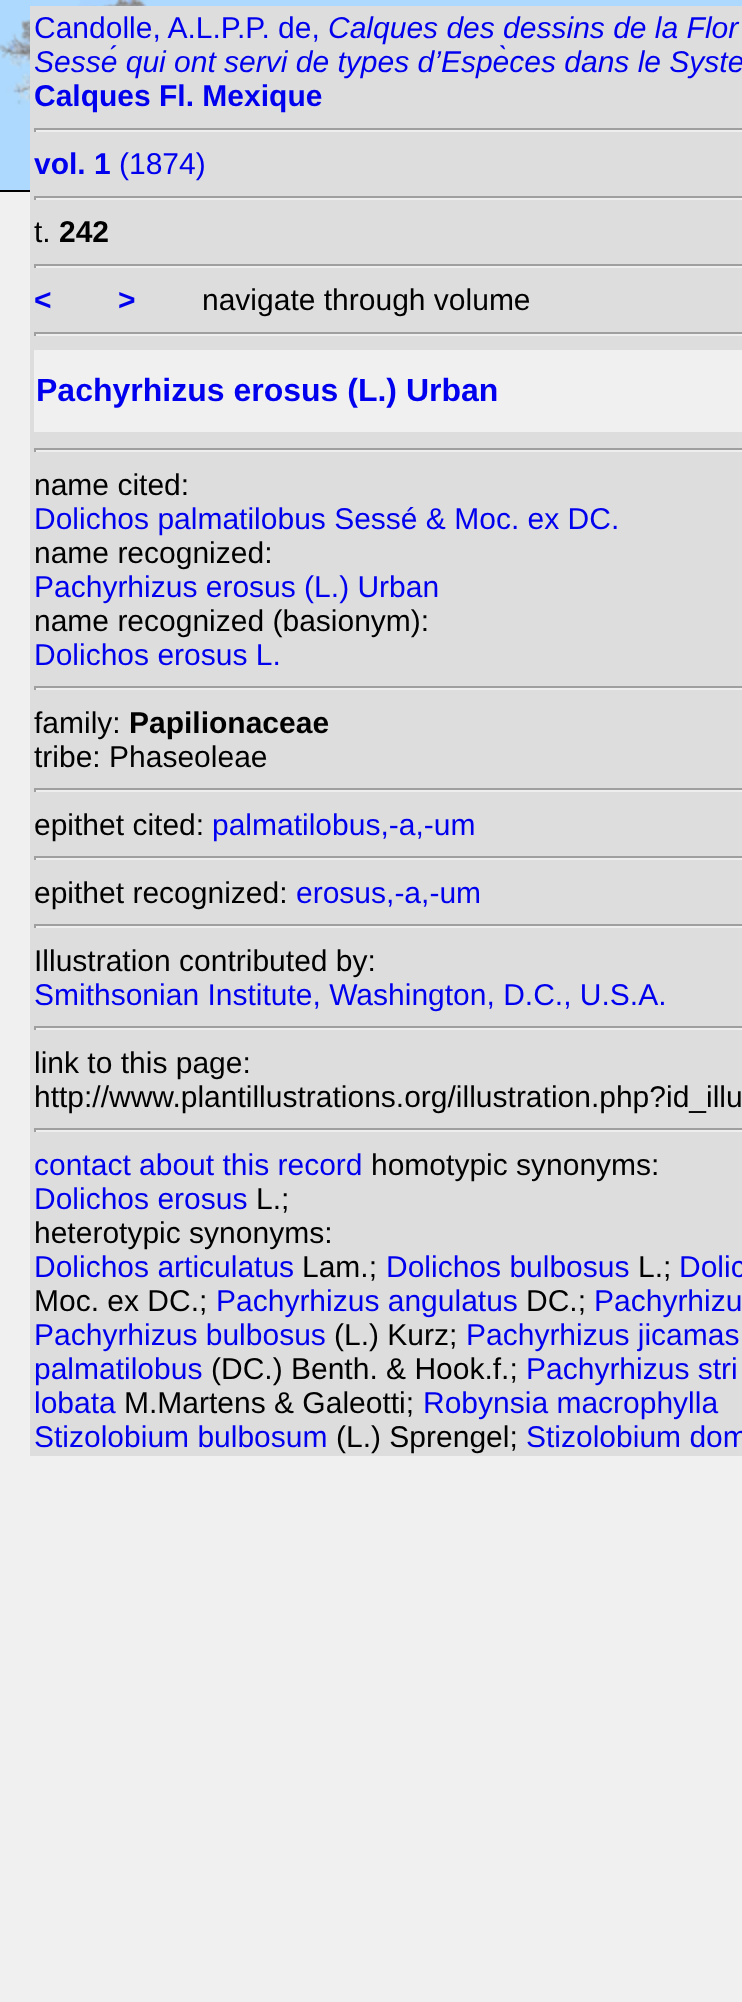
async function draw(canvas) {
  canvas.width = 742
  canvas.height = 2002
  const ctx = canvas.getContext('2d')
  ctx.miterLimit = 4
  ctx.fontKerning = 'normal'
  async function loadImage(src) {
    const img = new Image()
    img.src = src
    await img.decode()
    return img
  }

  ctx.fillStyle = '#f0f0f0'
  ctx.fillRect(0, 0, 742, 2002)
  ctx.fillStyle = '#add9fe'
  ctx.fillRect(0, 0, 742, 190)
  ctx.fillStyle = '#000'
  ctx.fillRect(0, 190, 30, 2)
  ctx.drawImage(await loadImage('image0.png'), 0, 0, 200, 188)
  ctx.fillStyle = '#ddd'
  ctx.fillRect(30, 6, 712, 1450)
  ctx.font = '30px Liberation Sans'
  ctx.fillStyle = '#00e'
  ctx.fillText('Candolle, A.L.P.P. de,', 34, 38)
  ctx.font = 'italic 30px Liberation Sans'
  ctx.fillText('Calques des dessins de la Flor', 328, 38)
  ctx.fillText('Sessé qui ont servi de types d’Espèces dans le Syste', 34, 72)
  ctx.font = 'bold 30px Liberation Sans'
  ctx.fillText('Calques Fl. Mexique', 34, 106)
  ctx.fillStyle = '#9f9f9f'
  ctx.fillRect(34, 128, 708, 2)
  ctx.fillStyle = '#eee'
  ctx.fillRect(34, 130, 708, 2)
  ctx.fillStyle = '#9f9f9f'
  ctx.fillRect(34, 128, 2, 4)
  ctx.fillStyle = '#00e'
  ctx.fillText('vol. 1', 34, 174)
  ctx.font = '30px Liberation Sans'
  ctx.fillText('(1874)', 119, 174)
  ctx.fillStyle = '#9f9f9f'
  ctx.fillRect(34, 196, 708, 2)
  ctx.fillStyle = '#eee'
  ctx.fillRect(34, 198, 708, 2)
  ctx.fillStyle = '#9f9f9f'
  ctx.fillRect(34, 196, 2, 4)
  ctx.fillStyle = '#000'
  ctx.fillText('t.', 34, 242)
  ctx.font = 'bold 30px Liberation Sans'
  ctx.fillText('242', 59, 242)
  ctx.fillStyle = '#9f9f9f'
  ctx.fillRect(34, 264, 708, 2)
  ctx.fillStyle = '#eee'
  ctx.fillRect(34, 266, 708, 2)
  ctx.fillStyle = '#9f9f9f'
  ctx.fillRect(34, 264, 2, 4)
  ctx.fillStyle = '#00e'
  ctx.fillText('<', 34, 310)
  ctx.fillText('>', 118, 310)
  ctx.font = '30px Liberation Sans'
  ctx.fillStyle = '#000'
  ctx.fillText('navigate through volume', 202, 310)
  ctx.fillStyle = '#9f9f9f'
  ctx.fillRect(34, 332, 708, 2)
  ctx.fillStyle = '#eee'
  ctx.fillRect(34, 334, 708, 2)
  ctx.fillStyle = '#9f9f9f'
  ctx.fillRect(34, 332, 2, 4)
  ctx.fillStyle = '#f0f0f0'
  ctx.fillRect(34, 350, 708, 82)
  ctx.font = 'bold 32px Liberation Sans'
  ctx.fillStyle = '#00e'
  ctx.fillText('Pachyrhizus erosus (L.) Urban', 36, 401)
  ctx.fillStyle = '#9f9f9f'
  ctx.fillRect(34, 448, 708, 2)
  ctx.fillStyle = '#eee'
  ctx.fillRect(34, 450, 708, 2)
  ctx.fillStyle = '#9f9f9f'
  ctx.fillRect(34, 448, 2, 4)
  ctx.font = '30px Liberation Sans'
  ctx.fillStyle = '#000'
  ctx.fillText('name cited:', 34, 495)
  ctx.fillStyle = '#00e'
  ctx.fillText('Dolichos palmatilobus Sessé & Moc. ex DC.', 34, 529)
  ctx.fillStyle = '#000'
  ctx.fillText('name recognized:', 34, 563)
  ctx.fillStyle = '#00e'
  ctx.fillText('Pachyrhizus erosus (L.) Urban', 34, 597)
  ctx.fillStyle = '#000'
  ctx.fillText('name recognized (basionym):', 34, 631)
  ctx.fillStyle = '#00e'
  ctx.fillText('Dolichos erosus L.', 34, 665)
  ctx.fillStyle = '#9f9f9f'
  ctx.fillRect(34, 686, 708, 2)
  ctx.fillStyle = '#eee'
  ctx.fillRect(34, 688, 708, 2)
  ctx.fillStyle = '#9f9f9f'
  ctx.fillRect(34, 686, 2, 4)
  ctx.fillStyle = '#000'
  ctx.fillText('family:', 34, 733)
  ctx.font = 'bold 30px Liberation Sans'
  ctx.fillText('Papilionaceae', 129, 733)
  ctx.font = '30px Liberation Sans'
  ctx.fillText('tribe: Phaseoleae', 34, 767)
  ctx.fillStyle = '#9f9f9f'
  ctx.fillRect(34, 788, 708, 2)
  ctx.fillStyle = '#eee'
  ctx.fillRect(34, 790, 708, 2)
  ctx.fillStyle = '#9f9f9f'
  ctx.fillRect(34, 788, 2, 4)
  ctx.fillStyle = '#000'
  ctx.fillText('epithet cited:', 34, 835)
  ctx.fillStyle = '#00e'
  ctx.fillText('palmatilobus,-a,-um', 212, 835)
  ctx.fillStyle = '#9f9f9f'
  ctx.fillRect(34, 856, 708, 2)
  ctx.fillStyle = '#eee'
  ctx.fillRect(34, 858, 708, 2)
  ctx.fillStyle = '#9f9f9f'
  ctx.fillRect(34, 856, 2, 4)
  ctx.fillStyle = '#000'
  ctx.fillText('epithet recognized:', 34, 903)
  ctx.fillStyle = '#00e'
  ctx.fillText('erosus,-a,-um', 296, 903)
  ctx.fillStyle = '#9f9f9f'
  ctx.fillRect(34, 924, 708, 2)
  ctx.fillStyle = '#eee'
  ctx.fillRect(34, 926, 708, 2)
  ctx.fillStyle = '#9f9f9f'
  ctx.fillRect(34, 924, 2, 4)
  ctx.fillStyle = '#000'
  ctx.fillText('Illustration contributed by:', 34, 971)
  ctx.fillStyle = '#00e'
  ctx.fillText('Smithsonian Institute, Washington, D.C., U.S.A.', 34, 1005)
  ctx.fillStyle = '#9f9f9f'
  ctx.fillRect(34, 1026, 708, 2)
  ctx.fillStyle = '#eee'
  ctx.fillRect(34, 1028, 708, 2)
  ctx.fillStyle = '#9f9f9f'
  ctx.fillRect(34, 1026, 2, 4)
  ctx.fillStyle = '#000'
  ctx.fillText('link to this page:', 34, 1073)
  ctx.fillText('http://www.plantillustrations.org/illustration.php?id_illu', 34, 1107)
  ctx.fillStyle = '#9f9f9f'
  ctx.fillRect(34, 1128, 708, 2)
  ctx.fillStyle = '#eee'
  ctx.fillRect(34, 1130, 708, 2)
  ctx.fillStyle = '#9f9f9f'
  ctx.fillRect(34, 1128, 2, 4)
  ctx.fillStyle = '#00e'
  ctx.fillText('contact about this record', 34, 1175)
  ctx.fillStyle = '#000'
  ctx.fillText('homotypic synonyms:', 371, 1175)
  ctx.fillStyle = '#00e'
  ctx.fillText('Dolichos erosus', 34, 1209)
  ctx.fillStyle = '#000'
  ctx.fillText('L.;', 256, 1209)
  ctx.fillText('heterotypic synonyms:', 34, 1243)
  ctx.fillStyle = '#00e'
  ctx.fillText('Dolichos articulatus', 34, 1277)
  ctx.fillStyle = '#000'
  ctx.fillText('Lam.;', 302, 1277)
  ctx.fillStyle = '#00e'
  ctx.fillText('Dolichos bulbosus', 386, 1277)
  ctx.fillStyle = '#000'
  ctx.fillText('L.;', 638, 1277)
  ctx.fillStyle = '#00e'
  ctx.fillText('Dolic', 679, 1277)
  ctx.fillStyle = '#000'
  ctx.fillText('Moc. ex DC.;', 34, 1311)
  ctx.fillStyle = '#00e'
  ctx.fillText('Pachyrhizus angulatus', 216, 1311)
  ctx.fillStyle = '#000'
  ctx.fillText('DC.;', 526, 1311)
  ctx.fillStyle = '#00e'
  ctx.fillText('Pachyrhizu', 594, 1311)
  ctx.fillText('Pachyrhizus bulbosus', 34, 1345)
  ctx.fillStyle = '#000'
  ctx.fillText('(L.) Kurz;', 334, 1345)
  ctx.fillStyle = '#00e'
  ctx.fillText('Pachyrhizus jicamas', 466, 1345)
  ctx.fillText('palmatilobus', 34, 1379)
  ctx.fillStyle = '#000'
  ctx.fillText('(DC.) Benth. & Hook.f.;', 211, 1379)
  ctx.fillStyle = '#00e'
  ctx.fillText('Pachyrhizus stri', 526, 1379)
  ctx.fillText('lobata', 34, 1413)
  ctx.fillStyle = '#000'
  ctx.fillText('M.Martens & Galeotti;', 124, 1413)
  ctx.fillStyle = '#00e'
  ctx.fillText('Robynsia macrophylla', 423, 1413)
  ctx.fillText('Stizolobium bulbosum', 34, 1447)
  ctx.fillStyle = '#000'
  ctx.fillText('(L.) Sprengel;', 336, 1447)
  ctx.fillStyle = '#00e'
  ctx.fillText('Stizolobium dom', 526, 1447)
}

draw(document.querySelector('canvas'))
